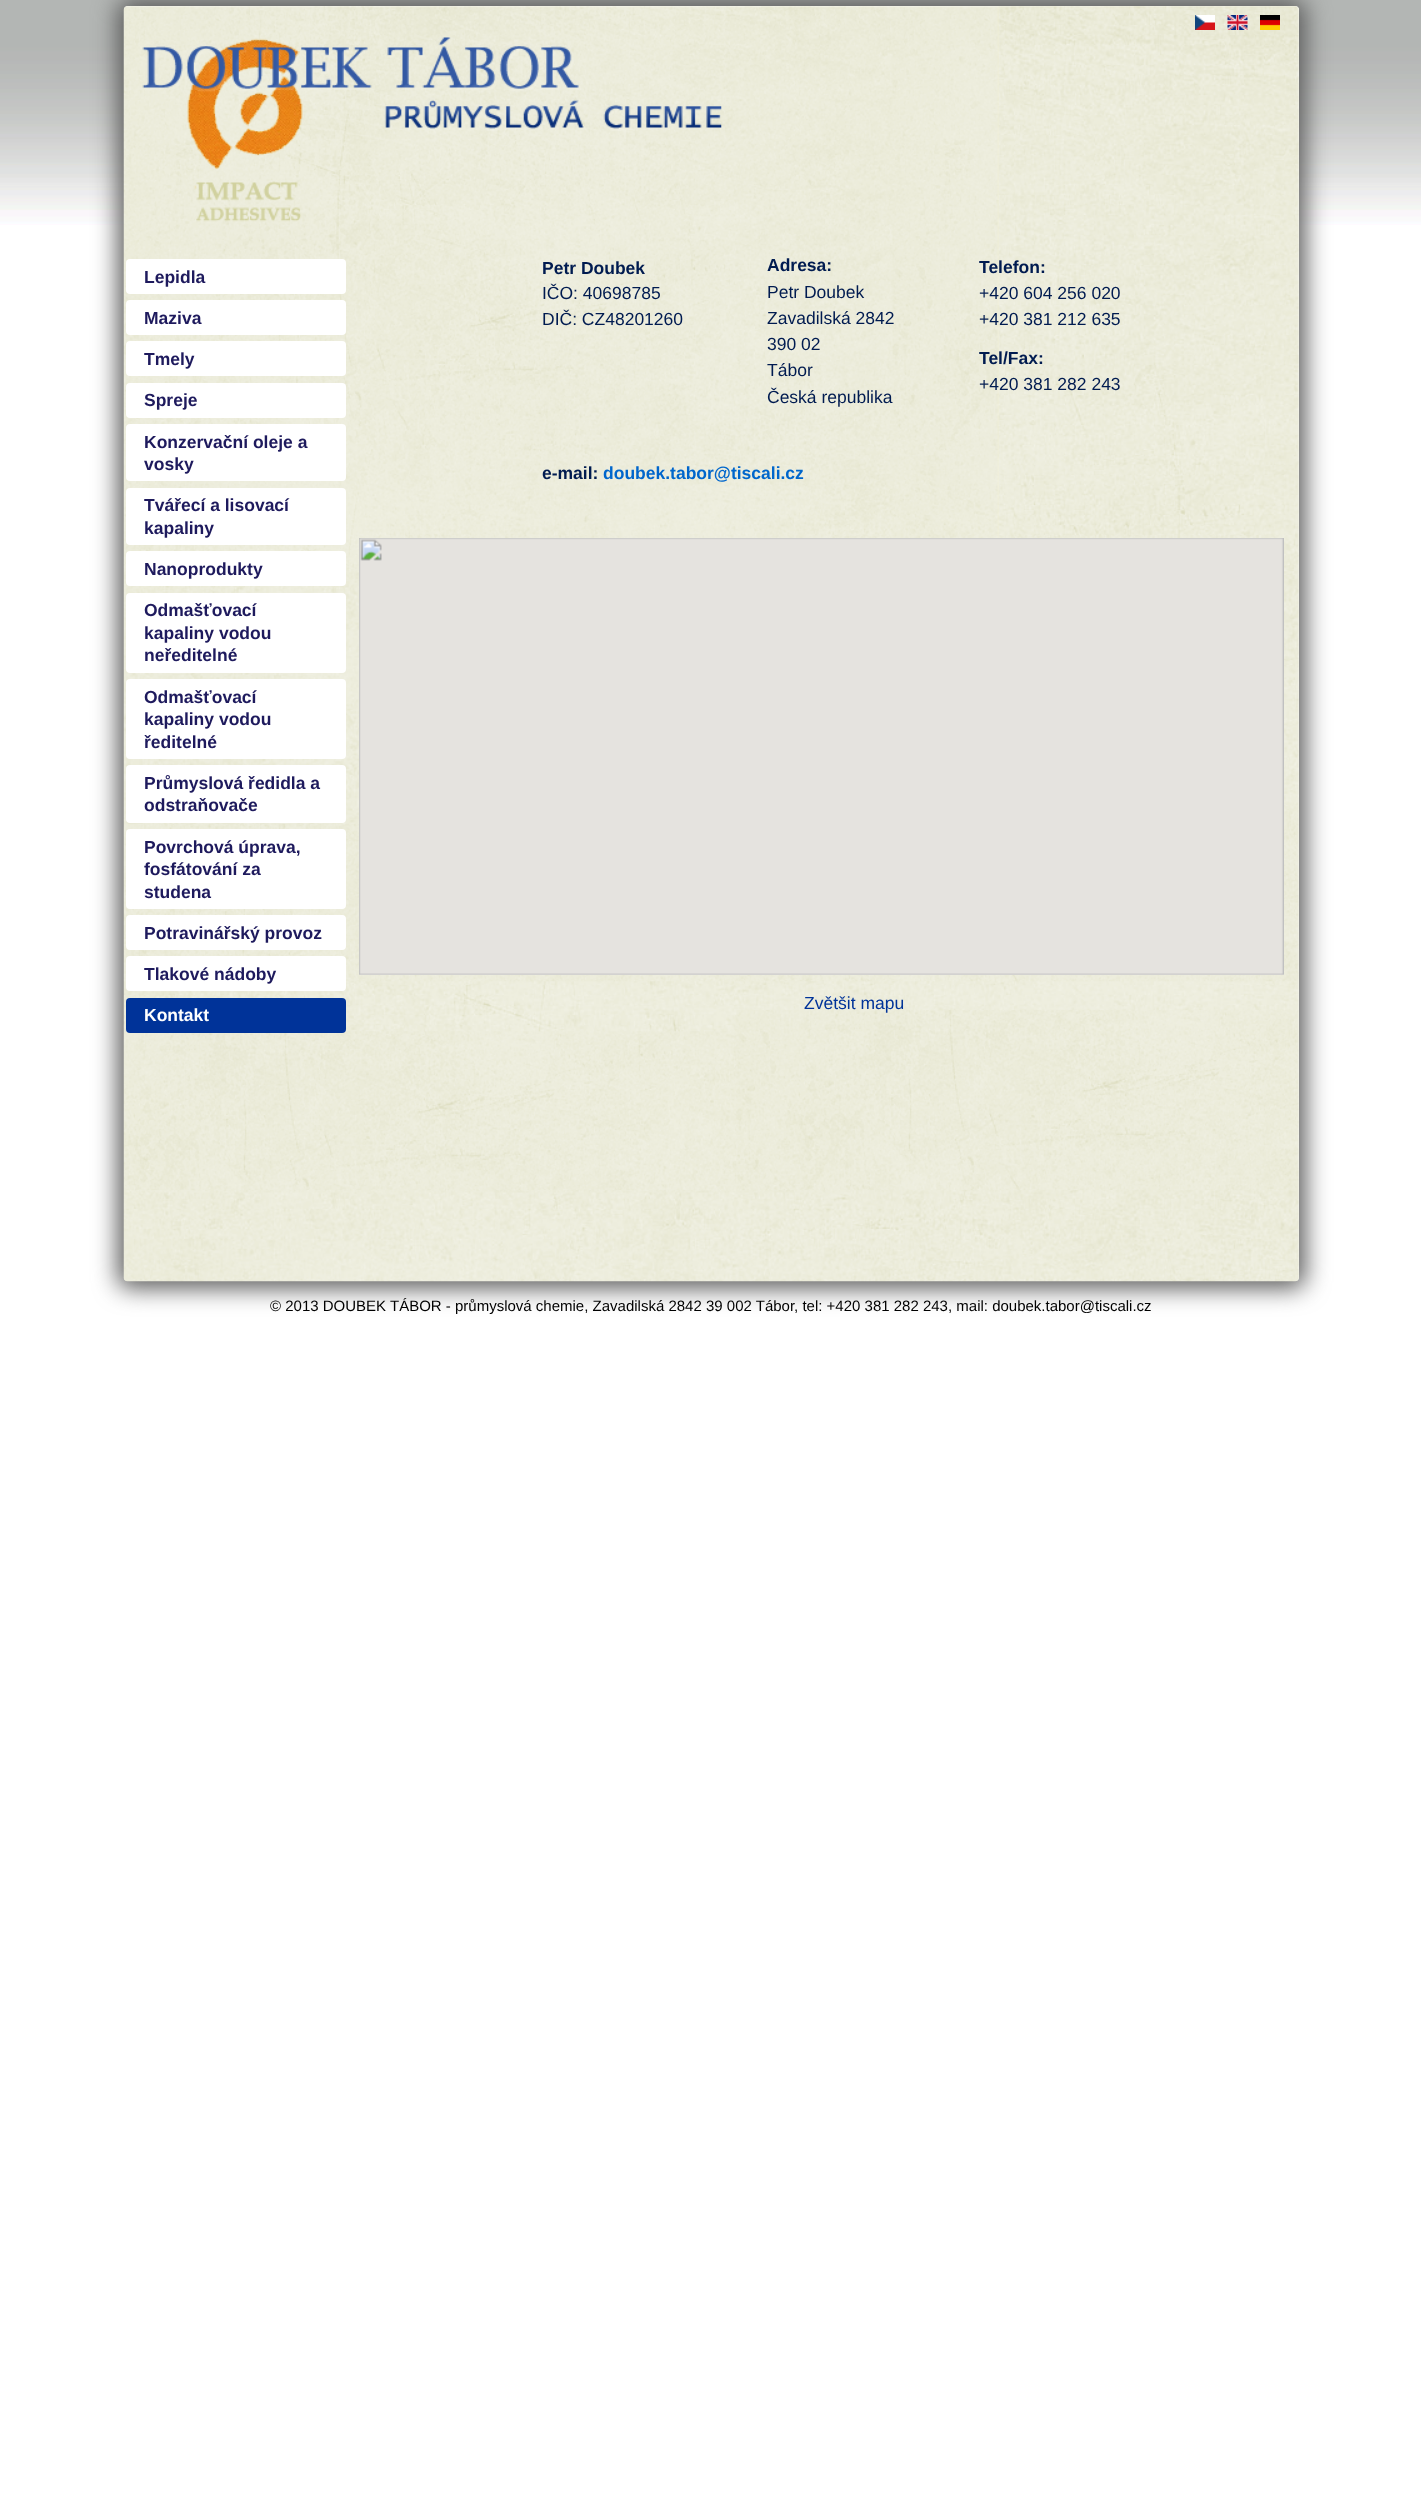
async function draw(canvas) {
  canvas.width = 1421
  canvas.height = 2493
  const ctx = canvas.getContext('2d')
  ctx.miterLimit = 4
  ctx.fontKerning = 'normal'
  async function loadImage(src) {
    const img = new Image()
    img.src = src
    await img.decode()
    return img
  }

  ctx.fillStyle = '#fff'
  ctx.fillRect(0, 0, 1421, 2493)
  ctx.drawImage(await loadImage('image0.png'), 0, 0, 1421, 225)
  ctx.fillStyle = '#575757'
  ctx.filter = 'blur(12.5px)'
  ctx.beginPath()
  ctx.roundRect(118, 0, 1187, 1288, 10)
  ctx.fill()
  ctx.filter = 'none'
  ctx.fillStyle = '#fff'
  ctx.beginPath()
  ctx.roundRect(124, 6, 1175, 1275, 4)
  ctx.fill()
  ctx.drawImage(await loadImage('image1.png'), 123, 6, 1176, 1276)
  ctx.drawImage(await loadImage('image2.png'), 1195, 15, 20, 15)
  ctx.drawImage(await loadImage('image3.png'), 1227, 15, 21, 15)
  ctx.drawImage(await loadImage('image4.png'), 1260, 15, 20, 15)
  ctx.drawImage(await loadImage('image5.png'), 142, 37, 580, 94)
  ctx.beginPath()
  ctx.roundRect(126, 259, 220, 35, 4)
  ctx.fill()
  ctx.font = 'bold 17.5px Liberation Sans'
  ctx.fillStyle = '#1e1a5d'
  ctx.fillText('Lepidla', 144, 283)
  ctx.fillStyle = '#fff'
  ctx.beginPath()
  ctx.roundRect(126, 300, 220, 35, 4)
  ctx.fill()
  ctx.fillStyle = '#1e1a5d'
  ctx.fillText('Maziva', 144, 324)
  ctx.fillStyle = '#fff'
  ctx.beginPath()
  ctx.roundRect(126, 341, 220, 35, 4)
  ctx.fill()
  ctx.fillStyle = '#1e1a5d'
  ctx.fillText('Tmely', 144, 365)
  ctx.fillStyle = '#fff'
  ctx.beginPath()
  ctx.roundRect(126, 383, 220, 35, 4)
  ctx.fill()
  ctx.fillStyle = '#1e1a5d'
  ctx.fillText('Spreje', 144, 406)
  ctx.fillStyle = '#fff'
  ctx.beginPath()
  ctx.roundRect(126, 424, 220, 57, 4)
  ctx.fill()
  ctx.fillStyle = '#1e1a5d'
  ctx.fillText('Konzervační oleje a', 144, 448)
  ctx.fillText('vosky', 144, 470)
  ctx.fillStyle = '#fff'
  ctx.beginPath()
  ctx.roundRect(126, 488, 220, 57, 4)
  ctx.fill()
  ctx.fillStyle = '#1e1a5d'
  ctx.fillText('Tvářecí a lisovací', 144, 511)
  ctx.fillText('kapaliny', 144, 534)
  ctx.fillStyle = '#fff'
  ctx.beginPath()
  ctx.roundRect(126, 551, 220, 35, 4)
  ctx.fill()
  ctx.fillStyle = '#1e1a5d'
  ctx.fillText('Nanoprodukty', 144, 575)
  ctx.fillStyle = '#fff'
  ctx.beginPath()
  ctx.roundRect(126, 593, 220, 80, 4)
  ctx.fill()
  ctx.fillStyle = '#1e1a5d'
  ctx.fillText('Odmašťovací', 144, 616)
  ctx.fillText('kapaliny vodou', 144, 639)
  ctx.fillText('neředitelné', 144, 661)
  ctx.fillStyle = '#fff'
  ctx.beginPath()
  ctx.roundRect(126, 679, 220, 80, 4)
  ctx.fill()
  ctx.fillStyle = '#1e1a5d'
  ctx.fillText('Odmašťovací', 144, 703)
  ctx.fillText('kapaliny vodou', 144, 725)
  ctx.fillText('ředitelné', 144, 748)
  ctx.fillStyle = '#fff'
  ctx.beginPath()
  ctx.roundRect(126, 765, 220, 58, 4)
  ctx.fill()
  ctx.fillStyle = '#1e1a5d'
  ctx.fillText('Průmyslová ředidla a', 144, 789)
  ctx.fillText('odstraňovače', 144, 811)
  ctx.fillStyle = '#fff'
  ctx.beginPath()
  ctx.roundRect(126, 829, 220, 80, 4)
  ctx.fill()
  ctx.fillStyle = '#1e1a5d'
  ctx.fillText('Povrchová úprava,', 144, 853)
  ctx.fillText('fosfátování za', 144, 875)
  ctx.fillText('studena', 144, 898)
  ctx.fillStyle = '#fff'
  ctx.beginPath()
  ctx.roundRect(126, 915, 220, 35, 4)
  ctx.fill()
  ctx.fillStyle = '#1e1a5d'
  ctx.fillText('Potravinářský provoz', 144, 939)
  ctx.fillStyle = '#fff'
  ctx.beginPath()
  ctx.roundRect(126, 956, 220, 35, 4)
  ctx.fill()
  ctx.fillStyle = '#1e1a5d'
  ctx.fillText('Tlakové nádoby', 144, 980)
  ctx.fillStyle = '#039'
  ctx.beginPath()
  ctx.roundRect(126, 998, 220, 35, 4)
  ctx.fill()
  ctx.fillStyle = '#fff'
  ctx.fillText('Kontakt', 144, 1021)
  ctx.fillStyle = '#001b50'
  ctx.fillText('Petr Doubek', 542, 274)
  ctx.fillText('Adresa:', 767, 271)
  ctx.font = '17.5px Liberation Sans'
  ctx.fillText('Petr Doubek', 767, 298)
  ctx.fillText('Zavadilská 2842', 767, 324)
  ctx.fillText('390 02', 767, 350)
  ctx.fillText('Tábor', 767, 376)
  ctx.fillText('Česká republika', 767, 403)
  ctx.font = 'bold 17.5px Liberation Sans'
  ctx.fillText('Telefon:', 979, 273)
  ctx.font = '17.5px Liberation Sans'
  ctx.fillText('+420 604 256 020', 979, 299)
  ctx.fillText('+420 381 212 635', 979, 325)
  ctx.fillText('IČO: 40698785', 542, 299)
  ctx.fillText('DIČ: CZ48201260', 542, 325)
  ctx.font = 'bold 17.5px Liberation Sans'
  ctx.fillText('Tel/Fax:', 979, 364)
  ctx.font = '17.5px Liberation Sans'
  ctx.fillText('+420 381 282 243', 979, 390)
  ctx.font = 'bold 17.5px Liberation Sans'
  ctx.fillText('e-mail:', 542, 479)
  ctx.fillStyle = '#06c'
  ctx.fillText('doubek.tabor@tiscali.cz', 603, 479)
  ctx.drawImage(await loadImage('image6.png'), 359, 538, 925, 437)
  ctx.font = '17.5px Liberation Sans'
  ctx.fillStyle = '#039'
  ctx.fillText('Zvětšit mapu', 804, 1009)
  ctx.font = '15px Liberation Sans'
  ctx.fillStyle = '#000'
  ctx.fillText('© 2013 DOUBEK TÁBOR - průmyslová chemie, Zavadilská 2842 39 002 Tábor, tel: +420 381 282 243, mail: doubek.tabor@tiscali.cz', 270, 1311)
}

draw(document.querySelector('canvas'))
